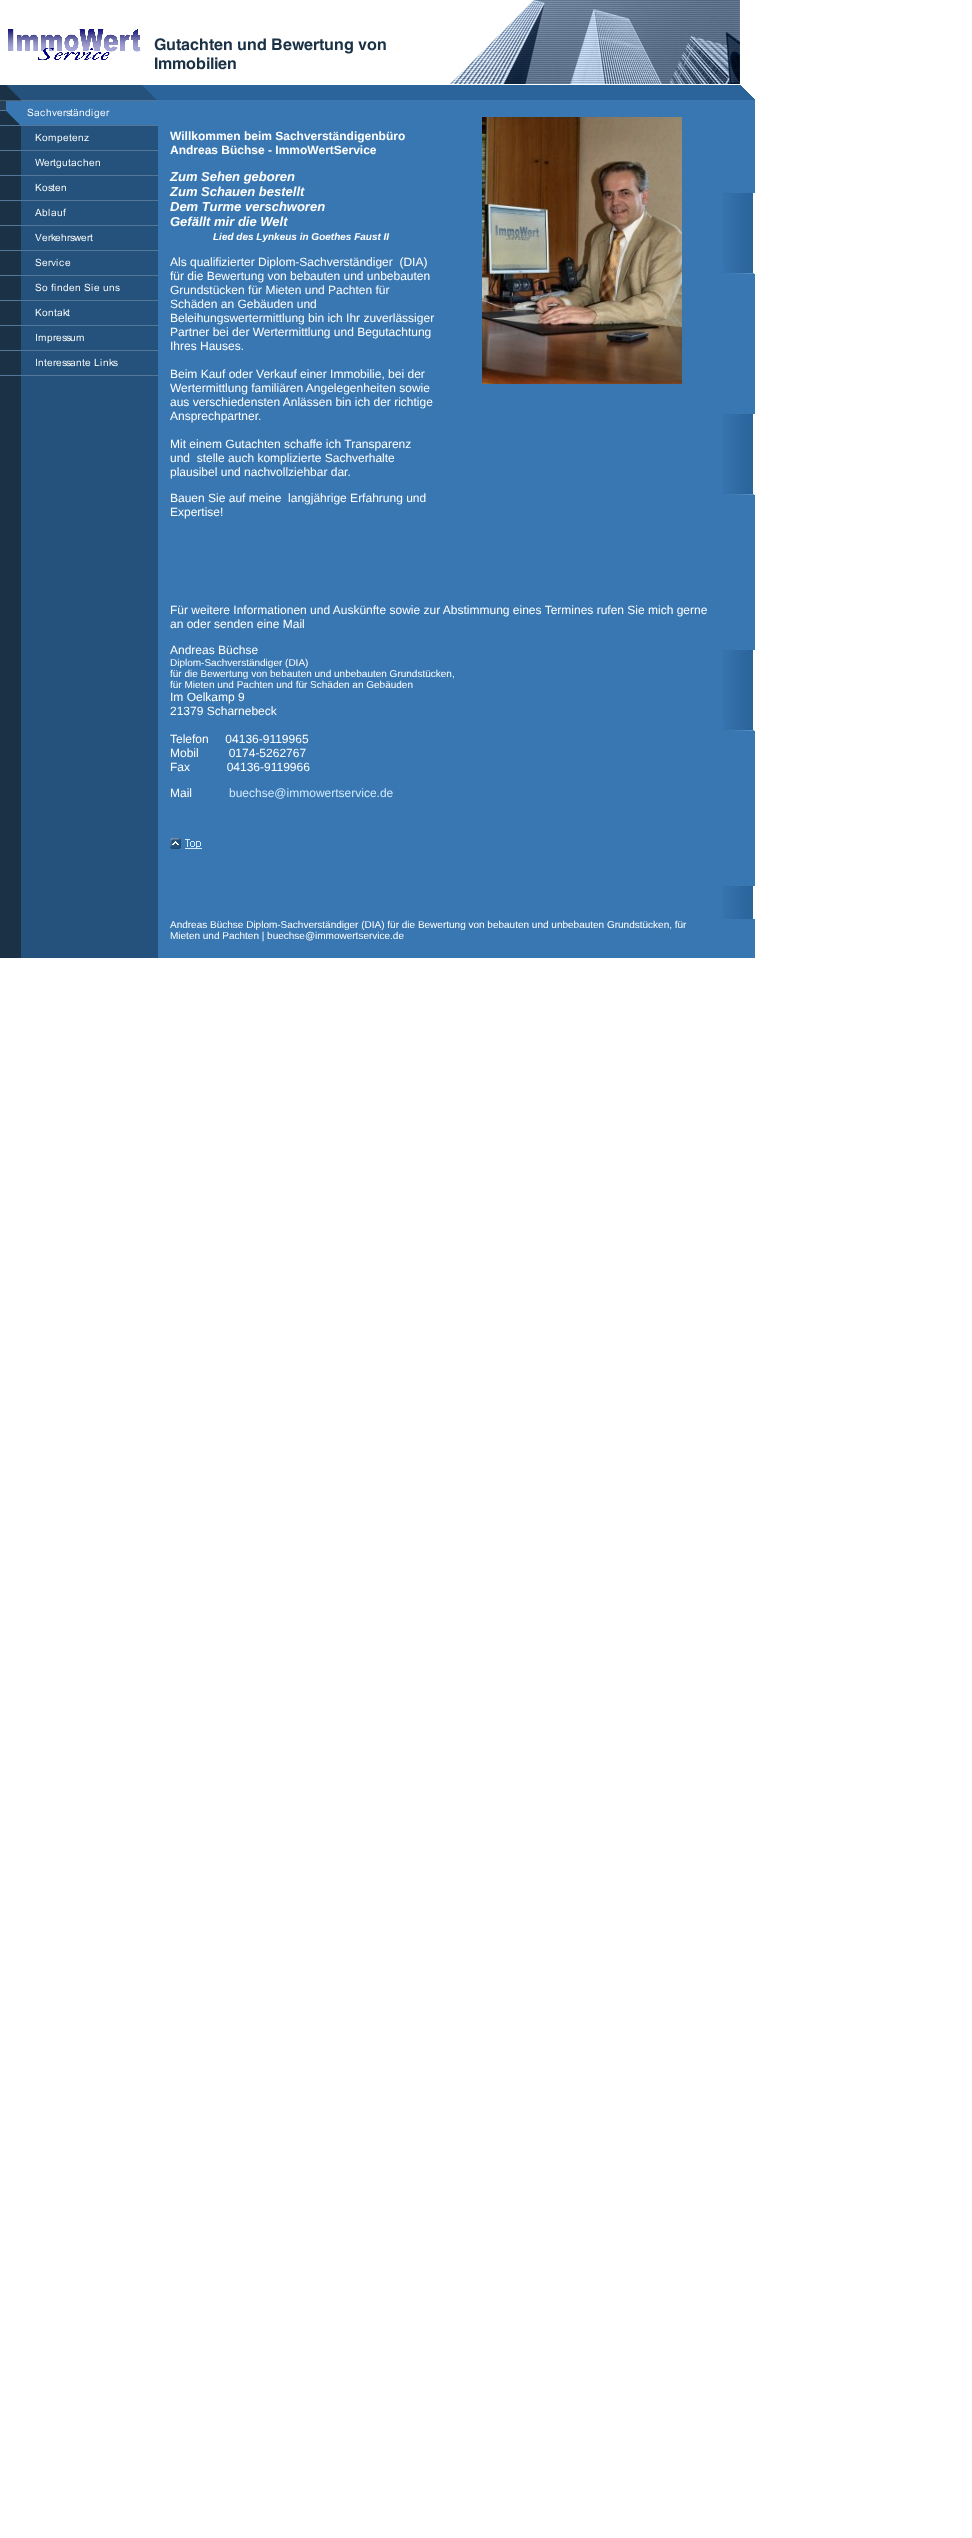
async function draw(canvas) {
  canvas.width = 972
  canvas.height = 2538
  const ctx = canvas.getContext('2d')
  ctx.miterLimit = 4
  ctx.fontKerning = 'normal'
  async function loadImage(src) {
    const img = new Image()
    img.src = src
    await img.decode()
    return img
  }

  ctx.fillStyle = '#fff'
  ctx.fillRect(0, 0, 972, 2538)
  ctx.fillStyle = '#3877b2'
  ctx.fillRect(158, 100, 597, 858)
  ctx.drawImage(await loadImage('image0.png'), 0, 126, 158, 832)
  ctx.drawImage(await loadImage('image1.png'), 8, 28, 133, 32)
  ctx.drawImage(await loadImage('image2.png'), 154, 38, 232, 32)
  ctx.drawImage(await loadImage('image3.png'), 450, 0, 290, 84)
  ctx.drawImage(await loadImage('image4.png'), 0, 85, 158, 16)
  ctx.drawImage(await loadImage('image5.png'), 0, 101, 158, 25)
  ctx.drawImage(await loadImage('image6.png'), 0, 133, 158, 18)
  ctx.drawImage(await loadImage('image7.png'), 0, 158, 158, 18)
  ctx.drawImage(await loadImage('image8.png'), 0, 183, 158, 18)
  ctx.drawImage(await loadImage('image9.png'), 0, 208, 158, 18)
  ctx.drawImage(await loadImage('image10.png'), 0, 233, 158, 18)
  ctx.drawImage(await loadImage('image11.png'), 0, 258, 158, 18)
  ctx.drawImage(await loadImage('image12.png'), 0, 283, 158, 18)
  ctx.drawImage(await loadImage('image13.png'), 0, 308, 158, 18)
  ctx.drawImage(await loadImage('image14.png'), 0, 333, 158, 18)
  ctx.drawImage(await loadImage('image15.png'), 0, 358, 158, 18)
  ctx.fillStyle = '#2b649a'
  ctx.fillRect(158, 85, 597, 15)
  ctx.font = 'bold 12px Liberation Sans'
  ctx.fillStyle = '#fff'
  ctx.fillText('Willkommen beim Sachverständigenbüro', 170, 140)
  ctx.fillText('Andreas Büchse - ImmoWertService', 170, 154)
  ctx.font = 'italic bold 13px Liberation Sans'
  ctx.fillText('Zum Sehen geboren', 170, 181)
  ctx.fillText('Zum Schauen bestellt', 170, 196)
  ctx.fillText('Dem Turme verschworen', 170, 211)
  ctx.fillText('Gefällt mir die Welt', 170, 226)
  ctx.font = 'italic bold 10px Liberation Sans'
  ctx.fillText('Lied des Lynkeus in Goethes Faust II', 213, 240)
  ctx.font = '12px Liberation Sans'
  ctx.fillText('Als qualifizierter Diplom-Sachverständiger  (DIA)', 170, 266)
  ctx.fillText('für die Bewertung von bebauten und unbebauten', 170, 280)
  ctx.fillText('Grundstücken für Mieten und Pachten für', 170, 294)
  ctx.fillText('Schäden an Gebäuden und', 170, 308)
  ctx.fillText('Beleihungswertermittlung bin ich Ihr zuverlässiger', 170, 322)
  ctx.fillText('Partner bei der Wertermittlung und Begutachtung', 170, 336)
  ctx.fillText('Ihres Hauses.', 170, 350)
  ctx.fillText('Beim Kauf oder Verkauf einer Immobilie, bei der', 170, 378)
  ctx.fillText('Wertermittlung familiären Angelegenheiten sowie', 170, 392)
  ctx.fillText('aus verschiedensten Anlässen bin ich der richtige', 170, 406)
  ctx.fillText('Ansprechpartner.', 170, 420)
  ctx.fillText('Mit einem Gutachten schaffe ich Transparenz', 170, 448)
  ctx.fillText('und  stelle auch komplizierte Sachverhalte', 170, 462)
  ctx.fillText('plausibel und nachvollziehbar dar.', 170, 476)
  ctx.fillText('Bauen Sie auf meine  langjährige Erfahrung und', 170, 502)
  ctx.fillText('Expertise!', 170, 516)
  ctx.drawImage(await loadImage('image16.png'), 482, 117, 200, 267)
  ctx.fillText('Für weitere Informationen und Auskünfte sowie zur Abstimmung eines Termines rufen Sie mich gerne', 170, 614)
  ctx.fillText('an oder senden eine Mail', 170, 628)
  ctx.fillText('Andreas Büchse', 170, 654)
  ctx.font = '10px Liberation Sans'
  ctx.fillText('Diplom-Sachverständiger (DIA)', 170, 666)
  ctx.fillText('für die Bewertung von bebauten und unbebauten Grundstücken,', 170, 677)
  ctx.fillText('für Mieten und Pachten und für Schäden an Gebäuden', 170, 688)
  ctx.font = '12px Liberation Sans'
  ctx.fillText('Im Oelkamp 9', 170, 701)
  ctx.fillText('21379 Scharnebeck', 170, 715)
  ctx.fillText('Telefon     04136-9119965', 170, 743)
  ctx.fillText('Mobil         0174-5262767', 170, 757)
  ctx.fillText('Fax           04136-9119966', 170, 771)
  ctx.fillText('Mail', 170, 797)
  ctx.fillStyle = '#d0e9ff'
  ctx.fillText('buechse@immowertservice.de', 229, 797)
  ctx.drawImage(await loadImage('image17.png'), 170, 838, 32, 11)
  ctx.drawImage(await loadImage('image18.png'), 723, 276, 32, 643)
  ctx.drawImage(await loadImage('image19.png'), 741, 85, 14, 14)
  ctx.drawImage(await loadImage('image20.png'), 723, 173, 32, 103)
  ctx.font = '10px Liberation Sans'
  ctx.fillStyle = '#fff'
  ctx.fillText('Andreas Büchse Diplom-Sachverständiger (DIA) für die Bewertung von bebauten und unbebauten Grundstücken, für', 170, 928)
  ctx.fillText('Mieten und Pachten | buechse@immowertservice.de', 170, 939)
}

draw(document.querySelector('canvas'))
